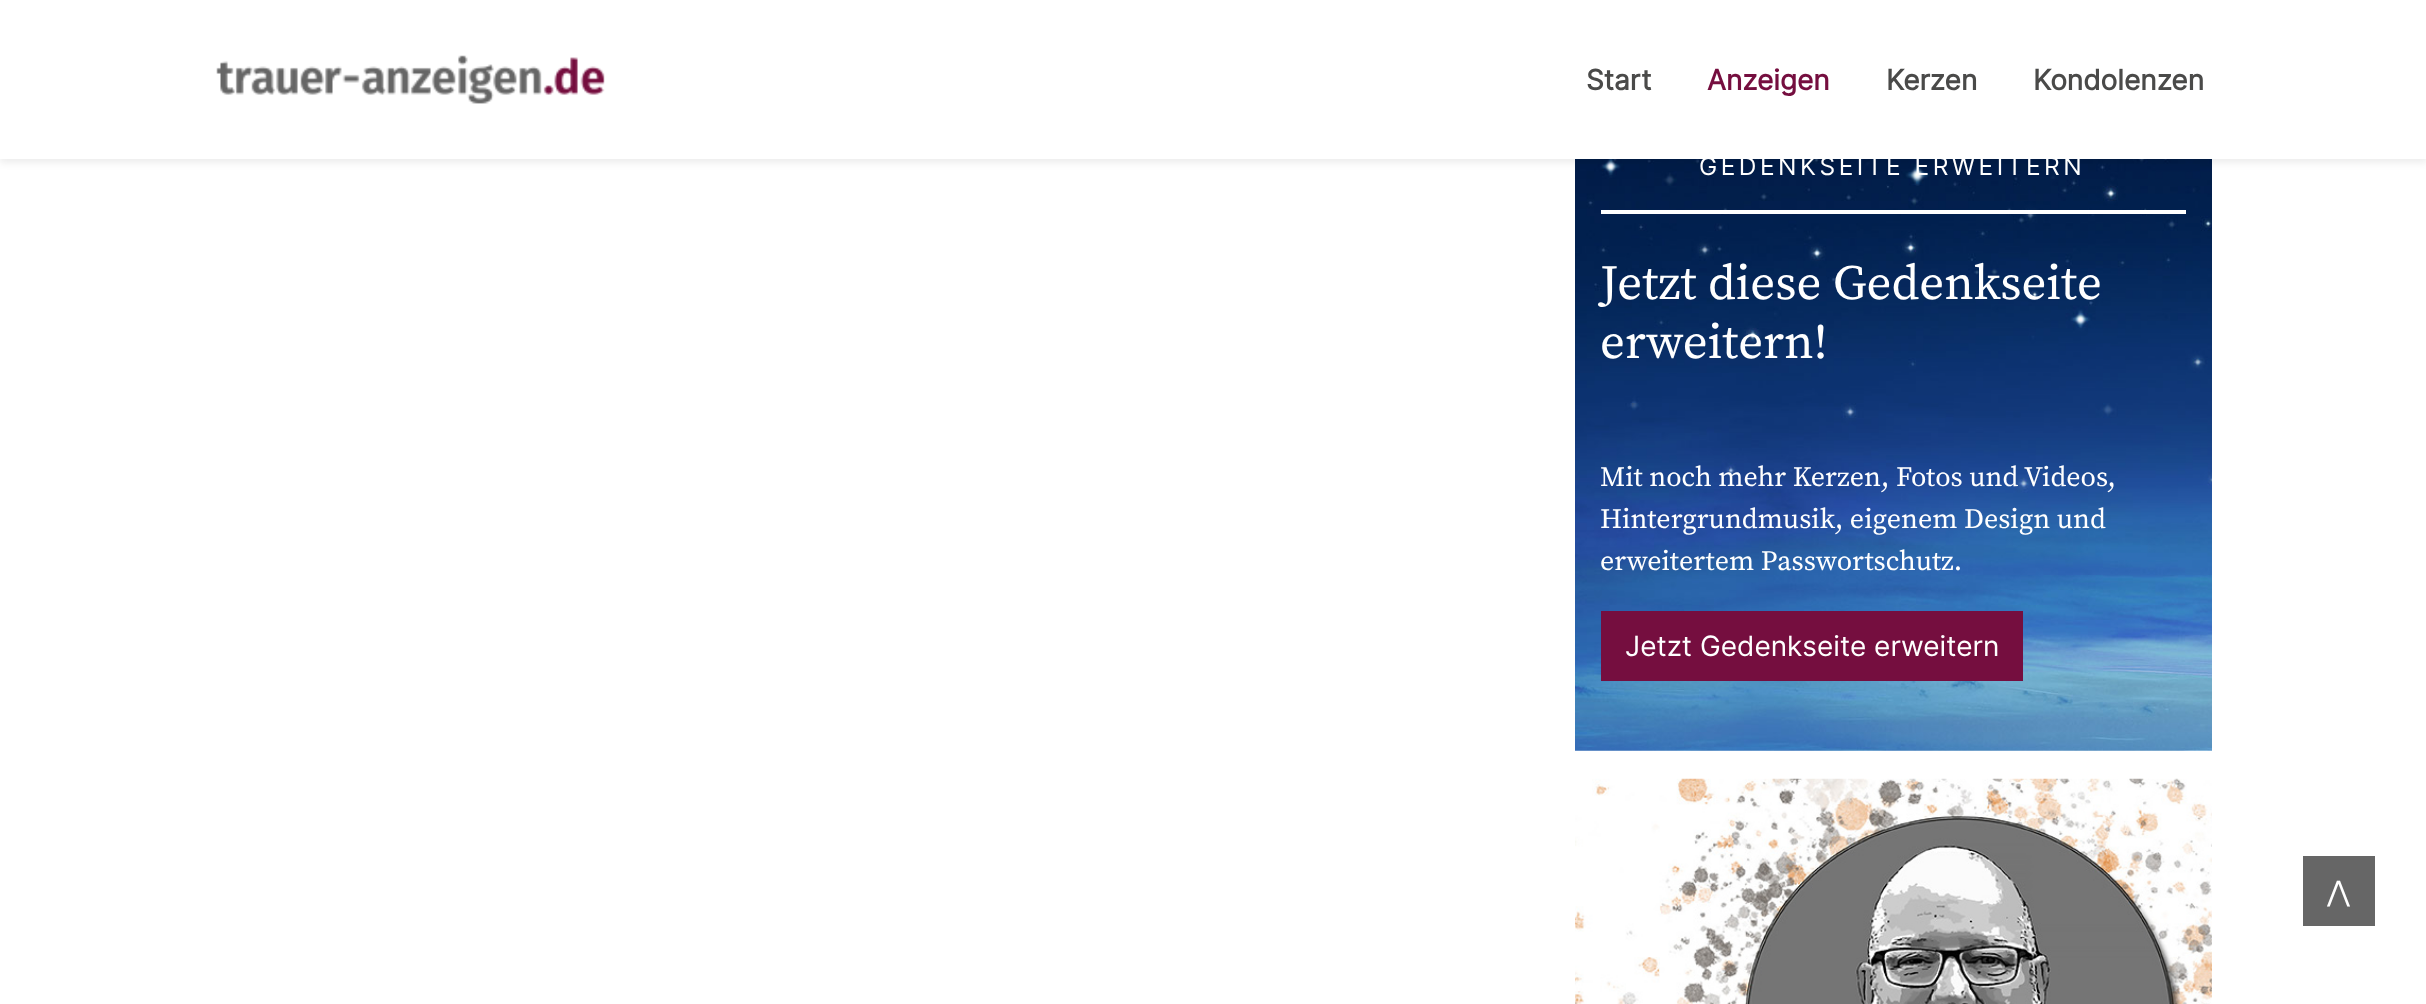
async function draw(canvas) {
  canvas.width = 2426
  canvas.height = 1004
  const ctx = canvas.getContext('2d')
  ctx.miterLimit = 4
  ctx.fontKerning = 'normal'
  async function loadImage(src) {
    const img = new Image()
    img.src = src
    await img.decode()
    return img
  }

  ctx.fillStyle = '#fff'
  ctx.fillRect(0, 0, 2426, 1004)
  ctx.drawImage(await loadImage('image1.png'), 1575, 159, 637, 592)
  ctx.fillStyle = '#00000012'
  ctx.filter = 'blur(3.5px)'
  ctx.beginPath()
  ctx.rect(0, 4, 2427, 159)
  ctx.fill()
  ctx.filter = 'none'
  ctx.fillStyle = '#fff'
  ctx.fillRect(0, 0, 2426, 159)
  ctx.drawImage(await loadImage('image0.png'), 216, 55, 389, 49)
  ctx.font = 'bold 28px Inter'
  ctx.fillStyle = '#4a4a49'
  ctx.fillText('Start', 1586, 90)
  ctx.fillStyle = '#750e3f'
  ctx.fillText('Anzeigen', 1707, 90)
  ctx.fillStyle = '#4a4a49'
  ctx.fillText('Kerzen', 1886, 90)
  ctx.fillText('Kondolenzen', 2033, 90)
  ctx.fillStyle = '#fff'
  ctx.fillRect(1601, 210, 585, 4)
  ctx.letterSpacing = '3.5px'
  ctx.font = '24.5px Inter'
  ctx.fillText('GEDENKSEITE ERWEITERN', 1699, 175)
  ctx.letterSpacing = '0px'
  ctx.font = '49px Source Serif Pro'
  ctx.fillText('Jetzt diese Gedenkseite', 1600, 299)
  ctx.fillText('erweitern!', 1600, 358)
  ctx.font = '28px Source Serif Pro'
  ctx.fillText('Mit noch mehr Kerzen, Fotos und Videos,', 1600, 486)
  ctx.fillText('Hintergrundmusik, eigenem Design und', 1600, 528)
  ctx.fillText('erweitertem Passwortschutz.', 1600, 570)
  ctx.fillStyle = '#750e3f'
  ctx.fillRect(1601, 611, 422, 70)
  ctx.font = '28px Inter'
  ctx.fillStyle = '#fff'
  ctx.fillText('Jetzt Gedenkseite erweitern', 1625, 656)
  ctx.drawImage(await loadImage('image2.png'), 1575, 778, 637, 226)
  ctx.fillStyle = '#666'
  ctx.fillRect(2303, 856, 72, 70)
  ctx.font = '28px DejaVu Sans'
  ctx.fillStyle = '#fff'
  ctx.fillText('⋀', 2327, 901)
}

draw(document.querySelector('canvas'))
